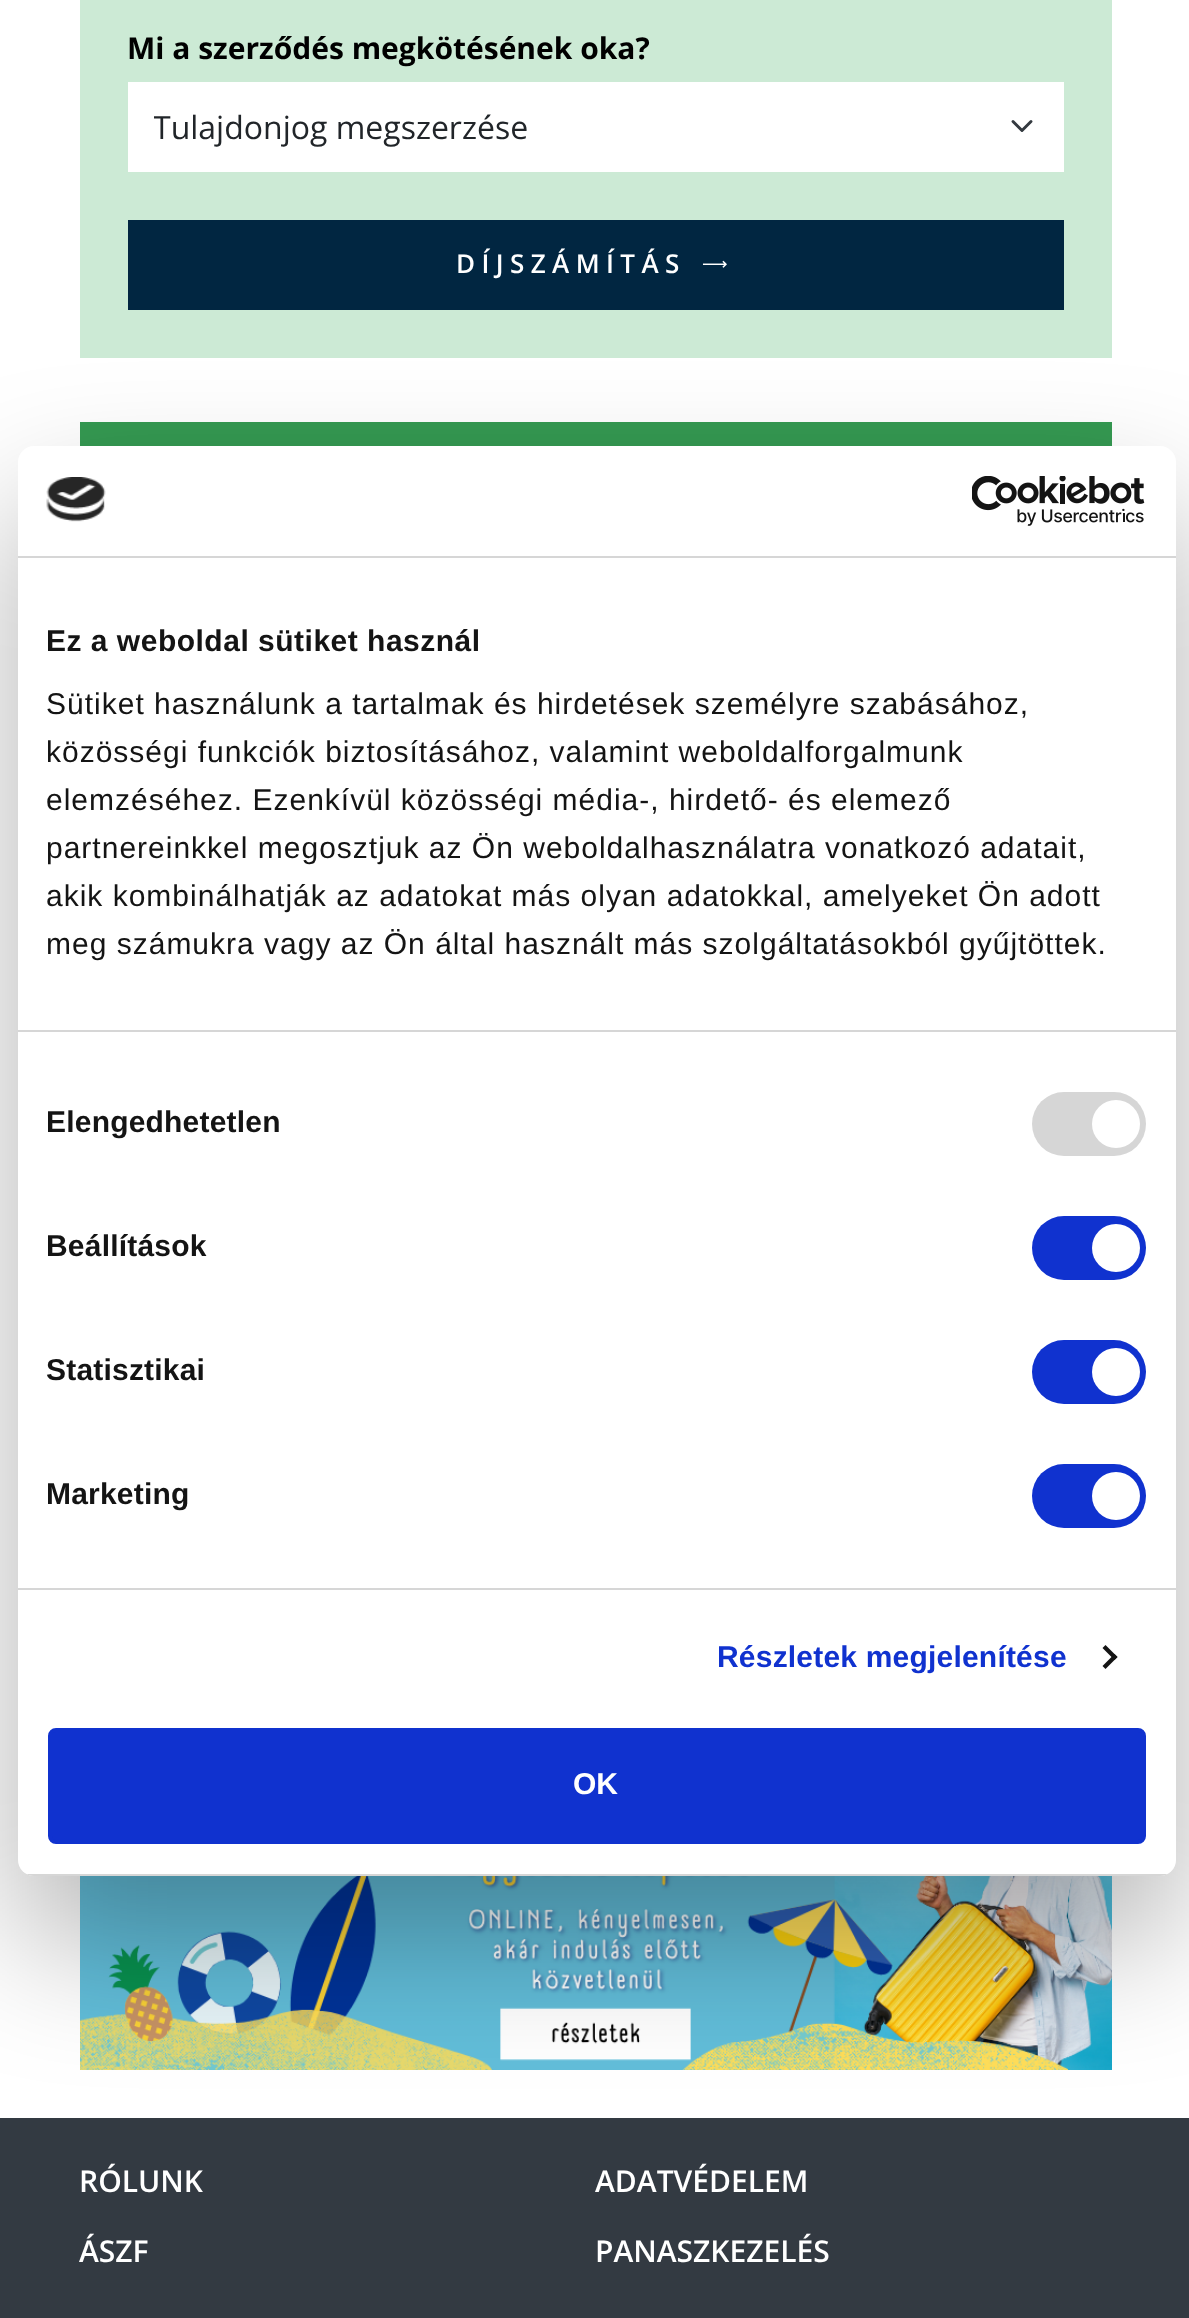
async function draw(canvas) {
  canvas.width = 1189
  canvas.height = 2318
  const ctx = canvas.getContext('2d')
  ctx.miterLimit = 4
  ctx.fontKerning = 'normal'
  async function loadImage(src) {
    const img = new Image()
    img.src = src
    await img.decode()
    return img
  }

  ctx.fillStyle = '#fff'
  ctx.fillRect(0, 0, 1189, 2318)
  ctx.fillStyle = '#ccead5'
  ctx.fillRect(80, 0, 1032, 358)
  ctx.font = 'bold 30px Open Sans'
  ctx.fillStyle = '#000'
  ctx.fillText('Mi a szerződés megkötésének oka?', 127, 59)
  ctx.fillStyle = '#fff'
  ctx.fillRect(128, 82, 936, 90)
  ctx.beginPath()
  ctx.moveTo(1013, 121.5)
  ctx.lineTo(1022, 130.5)
  ctx.lineTo(1031, 121.5)
  ctx.strokeStyle = '#343a40'
  ctx.lineWidth = 3
  ctx.lineCap = 'round'
  ctx.lineJoin = 'round'
  ctx.stroke()
  ctx.save()
  ctx.beginPath()
  ctx.rect(154, 102, 836, 48)
  ctx.clip()
  ctx.font = '32px Open Sans'
  ctx.fillStyle = '#212529'
  ctx.fillText('Tulajdonjog megszerzése', 153, 139)
  ctx.restore()
  ctx.fillStyle = '#012641'
  ctx.fillRect(128, 220, 936, 90)
  ctx.letterSpacing = '6.4px'
  ctx.font = '600 26px Open Sans'
  ctx.fillStyle = '#fff'
  ctx.fillText('DÍJSZÁMÍTÁS', 456, 273)
  ctx.drawImage(await loadImage('image0.png'), 702, 260, 25, 8)
  ctx.fillStyle = '#359a52'
  ctx.fillRect(80, 422, 1032, 24)
  ctx.drawImage(await loadImage('image3.png'), 80, 1876, 1032, 194)
  ctx.fillStyle = '#333a42'
  ctx.fillRect(0, 2118, 1189, 200)
  ctx.fillStyle = '#0000004d'
  ctx.filter = 'blur(68px)'
  ctx.beginPath()
  ctx.roundRect(18, 510, 1158, 1430, 16)
  ctx.fill()
  ctx.filter = 'none'
  ctx.fillStyle = '#fff'
  ctx.beginPath()
  ctx.roundRect(18, 446, 1158, 1430, 16)
  ctx.fill()
  ctx.fillStyle = '#d6d6d6'
  ctx.fillRect(18, 556, 1158, 2)
  ctx.drawImage(await loadImage('image1.png'), 46, 477, 60, 45)
  ctx.drawImage(await loadImage('image2.png'), 972, 476, 173, 50)
  ctx.fillRect(18, 1030, 1158, 2)
  ctx.letterSpacing = '0.5px'
  ctx.font = 'bold 30px Liberation Sans'
  ctx.fillStyle = '#141414'
  ctx.fillText('Ez a weboldal sütiket használ', 46, 651)
  ctx.letterSpacing = '1px'
  ctx.font = '30px Liberation Sans'
  ctx.fillText('Sütiket használunk a tartalmak és hirdetések személyre szabásához,', 46, 714)
  ctx.fillText('közösségi funkciók biztosításához, valamint weboldalforgalmunk', 46, 762)
  ctx.fillText('elemzéséhez. Ezenkívül közösségi média-, hirdető- és elemező', 46, 810)
  ctx.fillText('partnereinkkel megosztjuk az Ön weboldalhasználatra vonatkozó adatait,', 46, 858)
  ctx.fillText('akik kombinálhatják az adatokat más olyan adatokkal, amelyeket Ön adott', 46, 906)
  ctx.fillText('meg számukra vagy az Ön által használt más szolgáltatásokból gyűjtöttek.', 46, 954)
  ctx.fillStyle = '#d6d6d6'
  ctx.fillRect(18, 1588, 1158, 2)
  ctx.letterSpacing = '0.2px'
  ctx.font = 'bold 30px Liberation Sans'
  ctx.fillStyle = '#141414'
  ctx.fillText('Elengedhetetlen', 46, 1132)
  ctx.fillStyle = '#d6d6d6'
  ctx.beginPath()
  ctx.roundRect(1032, 1092, 114, 64, 32)
  ctx.fill()
  ctx.fillStyle = '#fff'
  ctx.beginPath()
  ctx.arc(1116, 1124, 24, 0, 2 * Math.PI)
  ctx.fill()
  ctx.fillStyle = '#141414'
  ctx.fillText('Beállítások', 46, 1256)
  ctx.fillStyle = '#1032cf'
  ctx.beginPath()
  ctx.roundRect(1032, 1216, 114, 64, 32)
  ctx.fill()
  ctx.fillStyle = '#fff'
  ctx.beginPath()
  ctx.arc(1116, 1248, 24, 0, 2 * Math.PI)
  ctx.fill()
  ctx.fillStyle = '#141414'
  ctx.fillText('Statisztikai', 46, 1380)
  ctx.fillStyle = '#1032cf'
  ctx.beginPath()
  ctx.roundRect(1032, 1340, 114, 64, 32)
  ctx.fill()
  ctx.fillStyle = '#fff'
  ctx.beginPath()
  ctx.arc(1116, 1372, 24, 0, 2 * Math.PI)
  ctx.fill()
  ctx.fillStyle = '#141414'
  ctx.fillText('Marketing', 46, 1504)
  ctx.fillStyle = '#1032cf'
  ctx.beginPath()
  ctx.roundRect(1032, 1464, 114, 64, 32)
  ctx.fill()
  ctx.fillStyle = '#fff'
  ctx.beginPath()
  ctx.arc(1116, 1496, 24, 0, 2 * Math.PI)
  ctx.fill()
  ctx.fillStyle = '#1032cf'
  ctx.fillText('Részletek megjelenítése', 717, 1667)
  ctx.fillStyle = '#141414'
  ctx.beginPath()
  ctx.moveTo(1105.5, 1645)
  ctx.lineTo(1117.5, 1657)
  ctx.lineTo(1114.5, 1660)
  ctx.lineTo(1102.5, 1648)
  ctx.closePath()
  ctx.fill()
  ctx.beginPath()
  ctx.moveTo(1114.5, 1654)
  ctx.lineTo(1117.5, 1657)
  ctx.lineTo(1105.5, 1669)
  ctx.lineTo(1102.5, 1666)
  ctx.closePath()
  ctx.fill()
  ctx.save()
  ctx.beginPath()
  ctx.roundRect(18, 446, 1158, 1430, 16)
  ctx.clip()
  ctx.fillStyle = '#d6d6d6'
  ctx.fillRect(18, 1874, 1158, 2)
  ctx.restore()
  ctx.fillStyle = '#1032cf'
  ctx.beginPath()
  ctx.roundRect(50, 1730, 1094, 112, 6)
  ctx.fill()
  ctx.strokeStyle = '#1032cf'
  ctx.lineWidth = 4
  ctx.lineJoin = 'miter'
  ctx.stroke()
  ctx.letterSpacing = '0px'
  ctx.fillStyle = '#fff'
  ctx.fillText('OK', 573, 1794)
  ctx.font = '600 30px Open Sans'
  ctx.fillText('RÓLUNK', 79, 2192)
  ctx.fillText('ADATVÉDELEM', 595, 2192)
  ctx.fillText('ÁSZF', 79, 2262)
  ctx.fillText('PANASZKEZELÉS', 595, 2262)
}

draw(document.querySelector('canvas'))
